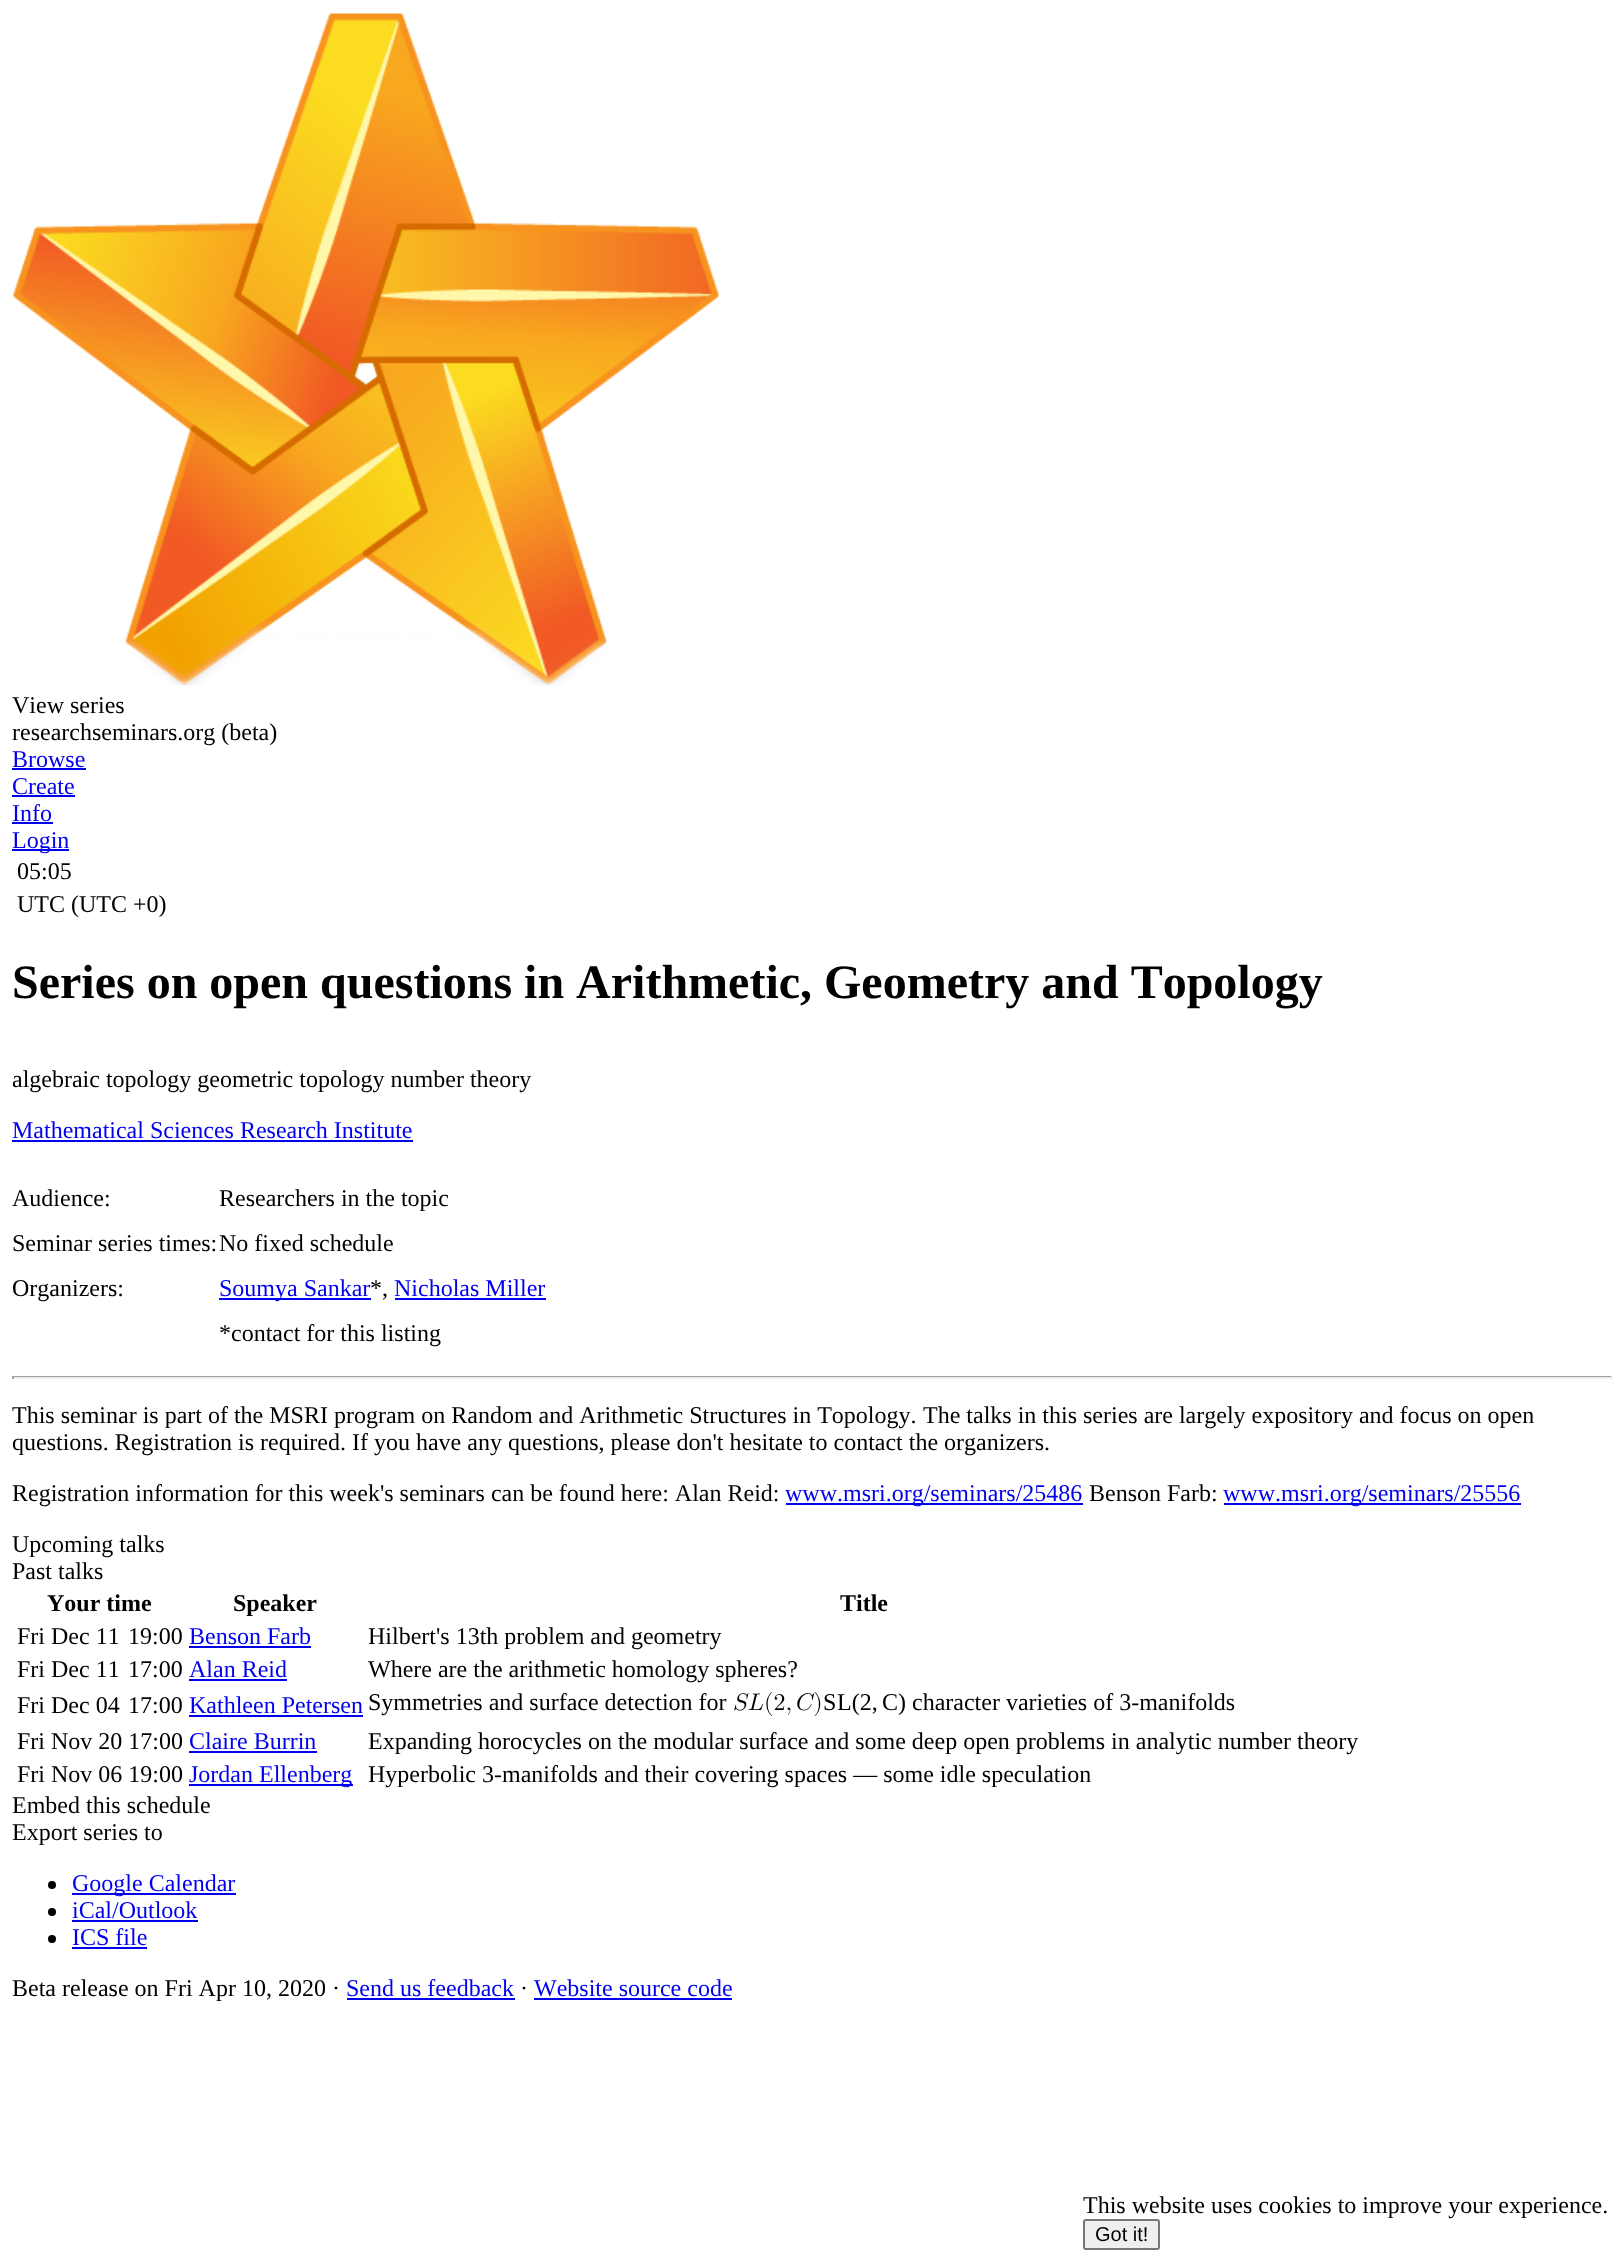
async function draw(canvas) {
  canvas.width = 1624
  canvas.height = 2262
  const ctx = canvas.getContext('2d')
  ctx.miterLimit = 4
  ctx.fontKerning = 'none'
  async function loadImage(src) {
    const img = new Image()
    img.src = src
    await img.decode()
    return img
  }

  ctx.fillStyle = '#fff'
  ctx.fillRect(0, 0, 1624, 2262)
  ctx.drawImage(await loadImage('image0.png'), 13, 13, 706, 673)
  ctx.font = '24px Liberation Serif'
  ctx.fillStyle = '#000'
  ctx.fillText('View series', 12, 713)
  ctx.fillText('researchseminars.org (beta)', 12, 740)
  ctx.fillStyle = '#00e'
  ctx.fillText('Browse', 12, 767)
  ctx.fillRect(12, 768, 74, 2)
  ctx.fillText('Create', 12, 794)
  ctx.fillRect(12, 795, 63, 2)
  ctx.fillText('Info', 12, 821)
  ctx.fillRect(12, 822, 41, 2)
  ctx.fillRect(12, 849, 57, 2)
  ctx.fillText('Login', 12, 848)
  ctx.fillStyle = '#000'
  ctx.fillText('05:05', 17, 879)
  ctx.fillText('UTC (UTC +0)', 17, 912)
  ctx.font = 'bold 48px Liberation Serif'
  ctx.fillText('Series on open questions in Arithmetic, Geometry and Topology', 12, 998)
  ctx.font = '24px Liberation Serif'
  ctx.fillText('algebraic topology geometric topology number theory', 12, 1087)
  ctx.fillStyle = '#00e'
  ctx.fillText('Mathematical Sciences Research Institute', 12, 1138)
  ctx.fillRect(12, 1140, 401, 2)
  ctx.fillStyle = '#000'
  ctx.fillText('Audience:', 12, 1206)
  ctx.fillText('Researchers in the topic', 219, 1206)
  ctx.fillText('Seminar series times:', 12, 1251)
  ctx.fillText('No fixed schedule', 219, 1251)
  ctx.fillText('Organizers:', 12, 1296)
  ctx.fillStyle = '#00e'
  ctx.fillRect(219, 1298, 152, 2)
  ctx.fillText('Soumya Sankar', 219, 1296)
  ctx.fillStyle = '#000'
  ctx.fillText('*,', 370, 1296)
  ctx.fillStyle = '#00e'
  ctx.fillText('Nicholas Miller', 394, 1296)
  ctx.fillRect(395, 1298, 151, 2)
  ctx.fillStyle = '#000'
  ctx.fillText('*contact for this listing', 219, 1341)
  ctx.fillStyle = '#9f9f9f'
  ctx.fillRect(12, 1376, 1601, 1)
  ctx.fillStyle = '#eee'
  ctx.fillRect(1611, 1376, 2, 3)
  ctx.fillRect(12, 1377, 1601, 2)
  ctx.fillStyle = '#9f9f9f'
  ctx.fillRect(12, 1376, 2, 3)
  ctx.fillStyle = '#000'
  ctx.fillText('This seminar is part of the MSRI program on Random and Arithmetic Structures in Topology.', 12, 1423)
  ctx.fillText('The talks in this series are largely expository and focus on open', 923, 1423)
  ctx.fillText('questions. Registration is required. If you have any questions, please don\'t hesitate to contact the organizers.', 12, 1450)
  ctx.fillText('Registration information for this week\'s seminars can be found here: Alan Reid:', 12, 1501)
  ctx.fillStyle = '#00e'
  ctx.fillRect(786, 1503, 297, 2)
  ctx.fillText('www.msri.org/seminars/25486', 785, 1501)
  ctx.fillStyle = '#000'
  ctx.fillText('Benson Farb:', 1089, 1501)
  ctx.fillStyle = '#00e'
  ctx.fillRect(1224, 1503, 297, 2)
  ctx.fillText('www.msri.org/seminars/25556', 1223, 1501)
  ctx.fillStyle = '#000'
  ctx.fillText('Upcoming talks', 12, 1552)
  ctx.fillText('Past talks', 12, 1579)
  ctx.font = 'bold 24px Liberation Serif'
  ctx.fillText('Your time', 47, 1611)
  ctx.fillText('Speaker', 233, 1611)
  ctx.fillText('Title', 840, 1611)
  ctx.font = '24px Liberation Serif'
  ctx.fillText('Fri Dec 11', 17, 1644)
  ctx.fillText('19:00', 128, 1644)
  ctx.fillStyle = '#00e'
  ctx.fillText('Benson Farb', 189, 1644)
  ctx.fillRect(189, 1646, 122, 2)
  ctx.fillStyle = '#000'
  ctx.fillText('Hilbert\'s 13th problem and geometry', 368, 1644)
  ctx.fillText('Fri Dec 11', 17, 1677)
  ctx.fillText('17:00', 128, 1677)
  ctx.fillStyle = '#00e'
  ctx.fillText('Alan Reid', 189, 1677)
  ctx.fillRect(189, 1679, 98, 2)
  ctx.fillStyle = '#000'
  ctx.fillText('Where are the arithmetic homology spheres?', 368, 1677)
  ctx.fillText('Fri Dec 04', 17, 1713)
  ctx.fillText('17:00', 128, 1713)
  ctx.fillStyle = '#00e'
  ctx.fillText('Kathleen Petersen', 189, 1713)
  ctx.fillRect(189, 1715, 174, 2)
  ctx.fillStyle = '#000'
  ctx.fillText('Symmetries and surface detection for', 368, 1710)
  ctx.font = '24px Latin Modern Math'
  ctx.fillText('𝑆𝐿(2,', 733, 1710)
  ctx.fillText('𝐶)', 796, 1710)
  ctx.font = '24px Liberation Serif'
  ctx.fillText('S', 823, 1710)
  ctx.fillText('L(2,', 837, 1710)
  ctx.fillText('C) character varieties of 3-manifolds', 882, 1710)
  ctx.fillText('Fri Nov 20 17:00', 17, 1749)
  ctx.fillStyle = '#00e'
  ctx.fillText('Claire Burrin', 189, 1749)
  ctx.fillRect(189, 1751, 128, 2)
  ctx.fillStyle = '#000'
  ctx.fillText('Expanding horocycles on the modular surface and some deep open problems in analytic number theory', 368, 1749)
  ctx.fillText('Fri Nov 06 19:00', 17, 1782)
  ctx.fillStyle = '#00e'
  ctx.fillRect(189, 1784, 164, 2)
  ctx.fillText('Jordan Ellenberg', 189, 1782)
  ctx.fillStyle = '#000'
  ctx.fillText('Hyperbolic 3-manifolds and their covering spaces — some idle speculation', 368, 1782)
  ctx.fillText('Embed this schedule', 12, 1813)
  ctx.fillText('Export series to', 12, 1840)
  ctx.beginPath()
  ctx.arc(52, 1885, 4, 0, 2 * Math.PI)
  ctx.fill()
  ctx.fillStyle = '#00e'
  ctx.fillRect(72, 1893, 164, 2)
  ctx.fillText('Google Calendar', 72, 1891)
  ctx.fillStyle = '#000'
  ctx.beginPath()
  ctx.arc(52, 1912, 4, 0, 2 * Math.PI)
  ctx.fill()
  ctx.fillStyle = '#00e'
  ctx.fillText('iCal/Outlook', 72, 1918)
  ctx.fillRect(72, 1920, 126, 2)
  ctx.fillStyle = '#000'
  ctx.beginPath()
  ctx.arc(52, 1939, 4, 0, 2 * Math.PI)
  ctx.fill()
  ctx.fillStyle = '#00e'
  ctx.fillText('ICS file', 72, 1945)
  ctx.fillRect(72, 1947, 75, 2)
  ctx.fillStyle = '#000'
  ctx.fillText('Beta release on Fri Apr 10, 2020 ·', 12, 1996)
  ctx.fillStyle = '#00e'
  ctx.fillText('Send us feedback', 346, 1996)
  ctx.fillRect(347, 1998, 168, 2)
  ctx.fillStyle = '#000'
  ctx.fillText('·', 520, 1996)
  ctx.fillStyle = '#00e'
  ctx.fillText('Website source code', 534, 1996)
  ctx.fillRect(534, 1998, 198, 2)
  ctx.fillStyle = '#000'
  ctx.fillText('This website uses cookies to improve your experience.', 1083, 2213)
  ctx.fillStyle = '#efefef'
  ctx.beginPath()
  ctx.roundRect(1084, 2220, 75, 29, 2)
  ctx.fill()
  ctx.strokeStyle = '#767676'
  ctx.lineWidth = 2
  ctx.stroke()
  ctx.font = '20px Liberation Sans'
  ctx.fillStyle = '#000'
  ctx.fillText('Got it!', 1095, 2241)
}

draw(document.querySelector('canvas'))
